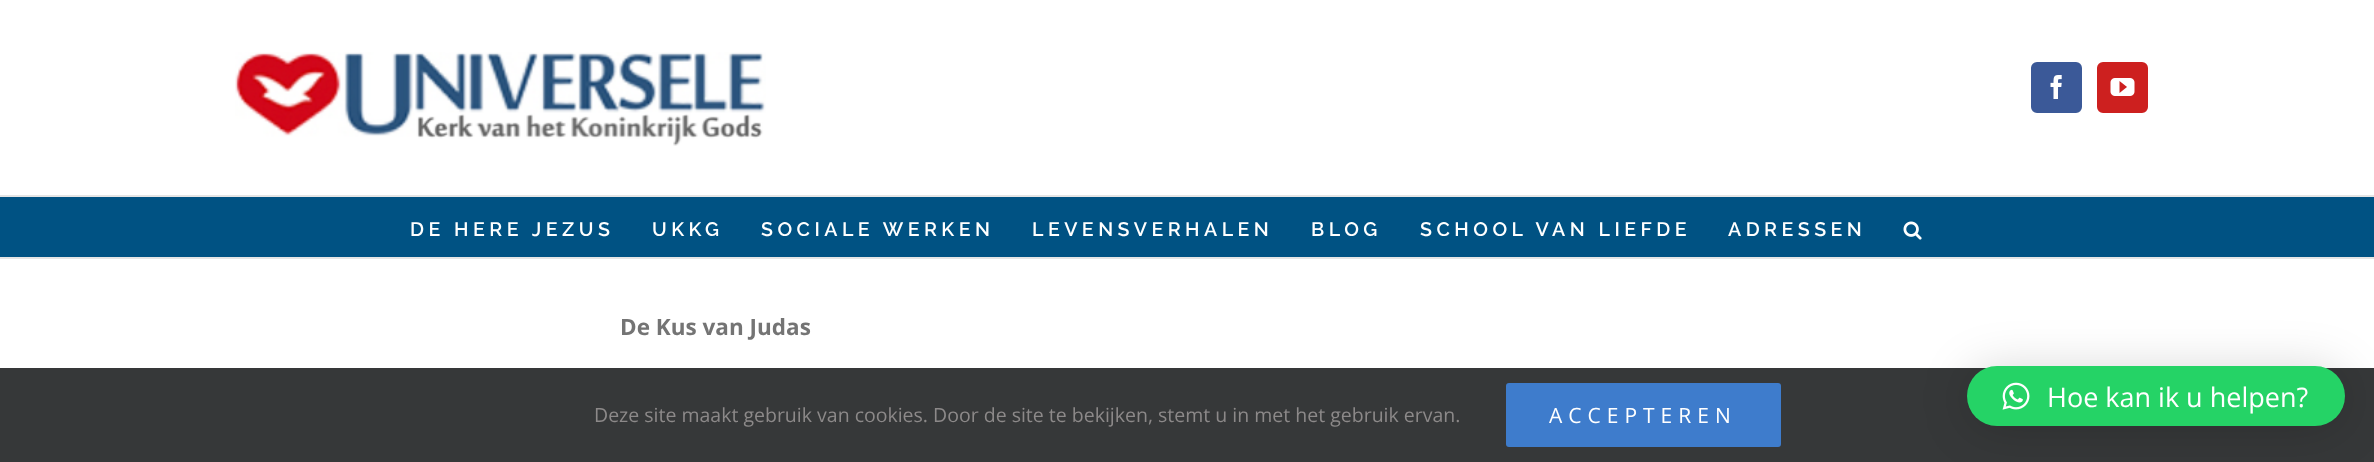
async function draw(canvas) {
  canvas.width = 2374
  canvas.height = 462
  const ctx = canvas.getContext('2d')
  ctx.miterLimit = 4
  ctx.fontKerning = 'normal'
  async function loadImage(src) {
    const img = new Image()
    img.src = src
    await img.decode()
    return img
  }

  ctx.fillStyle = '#fff'
  ctx.fillRect(0, 0, 2374, 462)
  ctx.fillStyle = '#e5e5e5'
  ctx.fillRect(0, 195, 2374, 2)
  ctx.drawImage(await loadImage('image0.png'), 235, 52, 531, 94)
  ctx.fillStyle = '#3b5998'
  ctx.beginPath()
  ctx.roundRect(2032, 63, 49, 49, 5)
  ctx.fill()
  ctx.strokeStyle = '#3b5998'
  ctx.lineWidth = 2
  ctx.stroke()
  ctx.drawImage(await loadImage('image1.png'), 2050, 75, 12, 24)
  ctx.fillStyle = '#cd201f'
  ctx.beginPath()
  ctx.roundRect(2098, 63, 49, 49, 5)
  ctx.fill()
  ctx.strokeStyle = '#cd201f'
  ctx.stroke()
  ctx.drawImage(await loadImage('image2.png'), 2110, 78, 25, 18)
  ctx.fillStyle = '#005283'
  ctx.fillRect(0, 197, 2374, 60)
  ctx.fillStyle = '#e5e5e5'
  ctx.fillRect(0, 257, 2374, 2)
  ctx.letterSpacing = '4.5px'
  ctx.font = '600 19.5px Raleway'
  ctx.fillStyle = '#fff'
  ctx.fillText('DE HERE JEZUS', 410, 236)
  ctx.fillText('UKKG', 652, 236)
  ctx.fillText('SOCIALE WERKEN', 761, 236)
  ctx.fillText('LEVENSVERHALEN', 1032, 236)
  ctx.fillText('BLOG', 1311, 236)
  ctx.fillText('SCHOOL VAN LIEFDE', 1420, 236)
  ctx.fillText('ADRESSEN', 1728, 236)
  ctx.drawImage(await loadImage('image3.png'), 1903, 221, 19, 19)
  ctx.letterSpacing = '0px'
  ctx.font = 'bold 22.5px Open Sans'
  ctx.fillStyle = '#747474'
  ctx.fillText('De Kus van Judas', 620, 335)
  ctx.fillStyle = '#363839'
  ctx.fillRect(0, 368, 2374, 94)
  ctx.fillStyle = '#00000029'
  ctx.filter = 'blur(24px)'
  ctx.beginPath()
  ctx.roundRect(1967, 369, 378, 60, 30)
  ctx.fill()
  ctx.filter = 'none'
  ctx.fillStyle = '#25d366'
  ctx.beginPath()
  ctx.roundRect(1967, 366, 378, 60, 30)
  ctx.fill()
  ctx.drawImage(await loadImage('image4.png'), 2002, 382, 28, 28)
  ctx.font = '27px Open Sans'
  ctx.fillStyle = '#fff'
  ctx.fillText('Hoe kan ik u helpen?', 2047, 407)
  ctx.font = '19.5px Open Sans'
  ctx.fillStyle = '#8c8989'
  ctx.fillText('Deze site maakt gebruik van cookies. Door de site te bekijken, stemt u in met het gebruik ervan.', 594, 422)
  ctx.fillStyle = '#3e7ccc'
  ctx.beginPath()
  ctx.roundRect(1506, 383, 275, 64, 3)
  ctx.fill()
  ctx.letterSpacing = '6px'
  ctx.font = '21px Open Sans'
  ctx.fillStyle = '#fff'
  ctx.fillText('ACCEPTEREN', 1549, 423)
}

draw(document.querySelector('canvas'))
